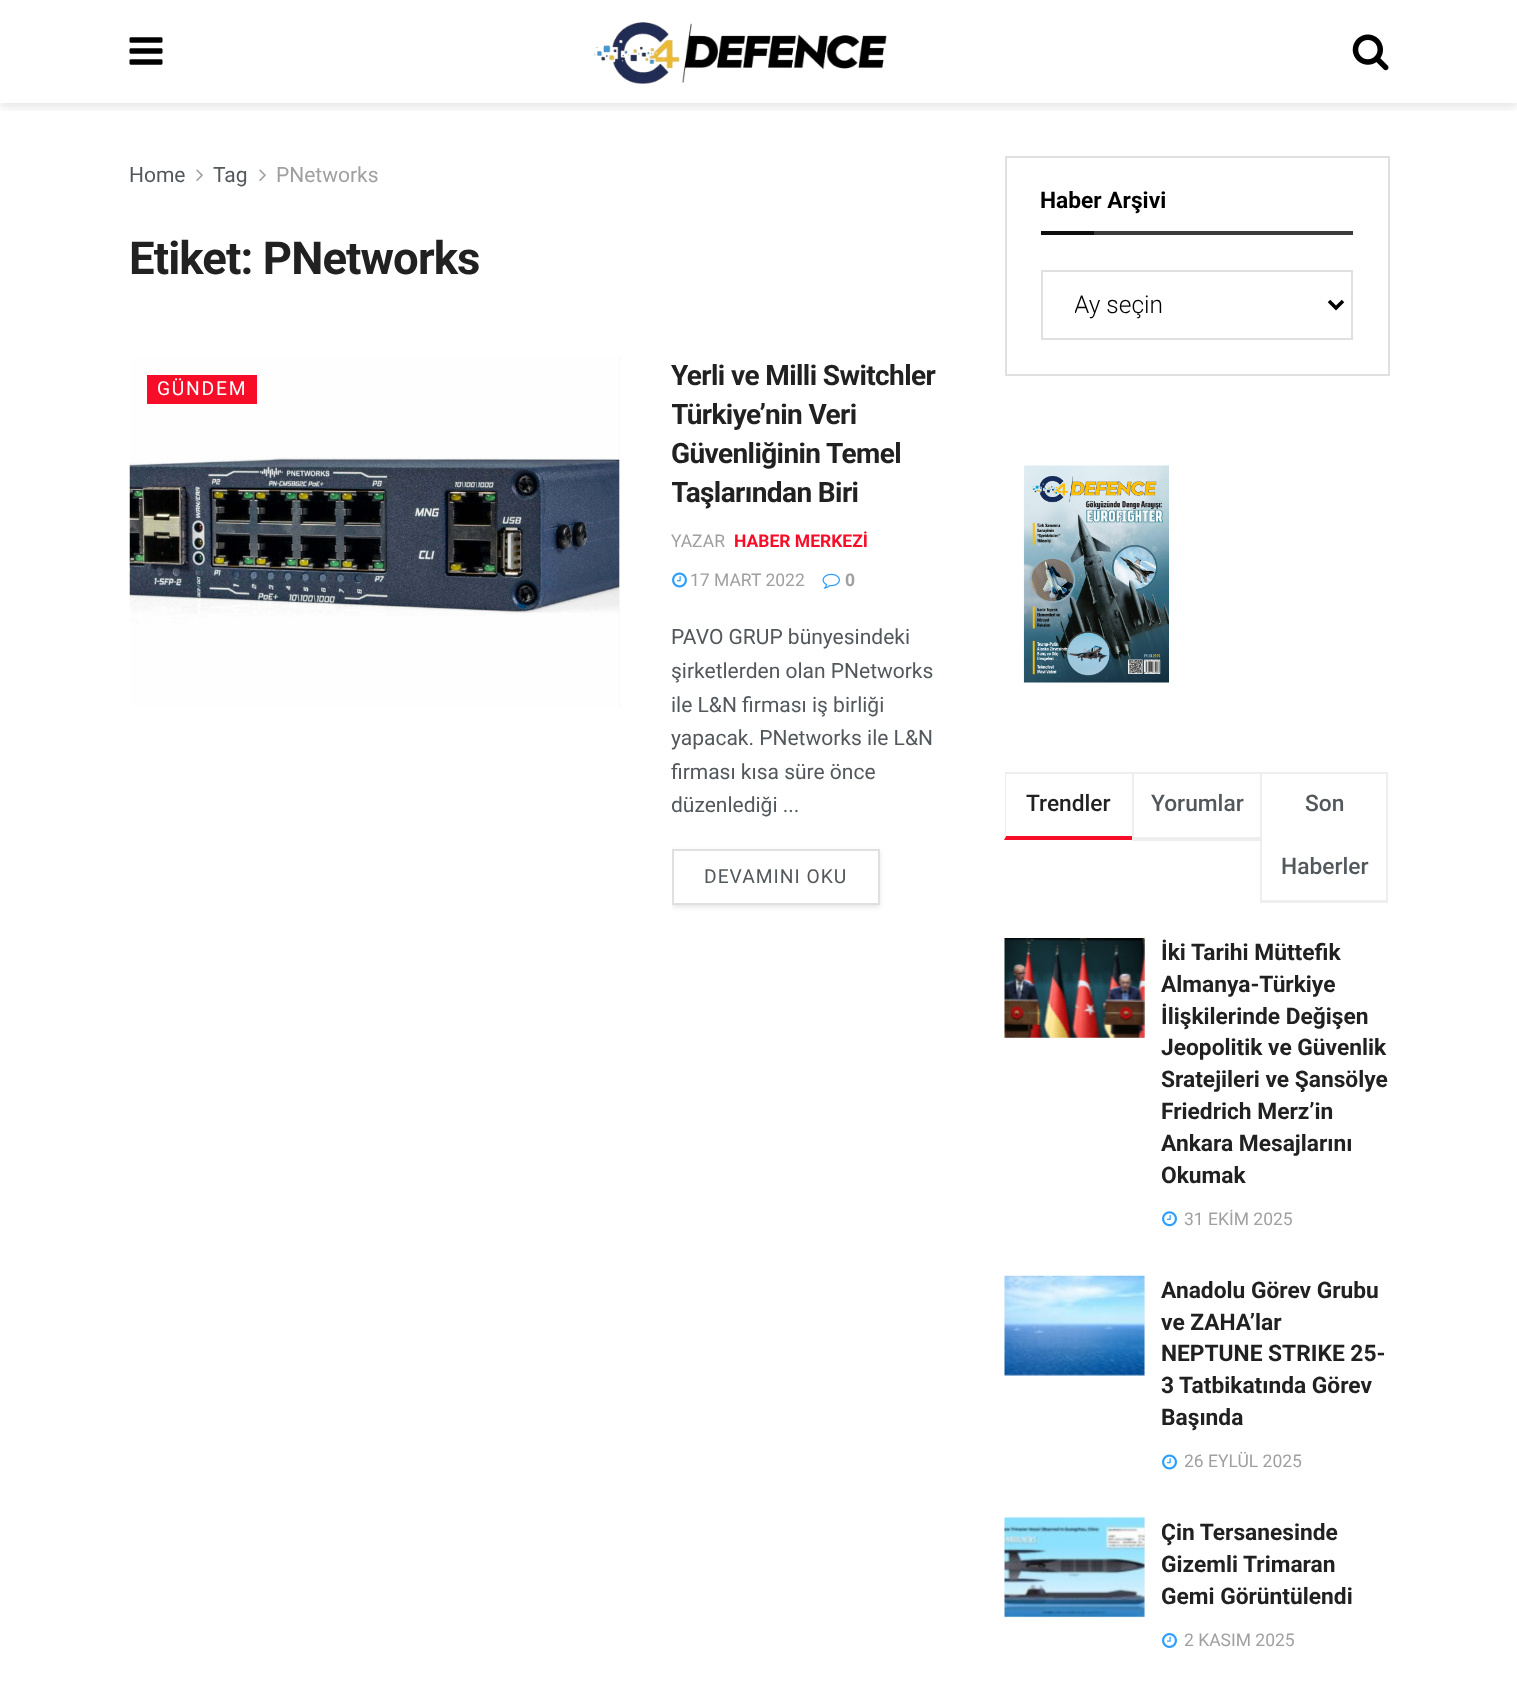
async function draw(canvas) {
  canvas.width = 1517
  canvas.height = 1699
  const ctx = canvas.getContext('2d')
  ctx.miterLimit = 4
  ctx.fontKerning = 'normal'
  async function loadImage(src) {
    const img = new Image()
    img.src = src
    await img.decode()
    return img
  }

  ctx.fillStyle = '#fff'
  ctx.fillRect(0, 0, 1517, 1699)
  ctx.save()
  ctx.beginPath()
  ctx.rect(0, 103, 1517, 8)
  ctx.clip()
  ctx.fillStyle = '#0000001a'
  ctx.filter = 'blur(5px)'
  ctx.beginPath()
  ctx.rect(0, 4, 1517, 103)
  ctx.fill()
  ctx.filter = 'none'
  ctx.restore()
  ctx.drawImage(await loadImage('image0.png'), 129, 37, 34, 28)
  ctx.drawImage(await loadImage('image1.png'), 594, 22, 293, 62)
  ctx.drawImage(await loadImage('image2.png'), 1352, 34, 37, 37)
  ctx.font = '21px Roboto'
  ctx.fillStyle = '#53585c'
  ctx.fillText('Home', 129, 182)
  ctx.drawImage(await loadImage('image3.png'), 196, 169, 7, 12)
  ctx.fillText('Tag', 213, 182)
  ctx.drawImage(await loadImage('image3.png'), 259, 169, 7, 12)
  ctx.fillStyle = '#a0a0a0'
  ctx.fillText('PNetworks', 276, 182)
  ctx.letterSpacing = '-0.9px'
  ctx.font = 'bold 45.5px Roboto'
  ctx.fillStyle = '#212121'
  ctx.fillText('Etiket: PNetworks', 129, 274)
  ctx.fillStyle = '#f7f7f7'
  ctx.fillRect(619, 357, 1, 350)
  ctx.drawImage(await loadImage('image4.png'), 129, 357, 491, 350)
  ctx.fillStyle = '#f70d28'
  ctx.fillRect(147, 375, 110, 29)
  ctx.letterSpacing = '1.75px'
  ctx.font = '19.25px Roboto'
  ctx.fillStyle = '#fff'
  ctx.fillText('GÜNDEM', 157, 395)
  ctx.letterSpacing = '-0.6px'
  ctx.font = 'bold 28px Roboto'
  ctx.fillStyle = '#212121'
  ctx.fillText('Yerli ve Milli Switchler', 671, 385)
  ctx.save()
  ctx.beginPath()
  ctx.rect(672, 357, 280, 557)
  ctx.clip()
  ctx.fillText('Türkiye’nin Veri', 671, 424)
  ctx.restore()
  ctx.fillText('Güvenliğinin Temel', 671, 463)
  ctx.save()
  ctx.beginPath()
  ctx.rect(672, 357, 280, 557)
  ctx.clip()
  ctx.fillText('Taşlarından Biri', 671, 502)
  ctx.restore()
  ctx.letterSpacing = '0px'
  ctx.font = '17.5px Roboto'
  ctx.fillStyle = '#a0a0a0'
  ctx.fillText('YAZAR ', 671, 547)
  ctx.font = 'bold 17.5px Roboto'
  ctx.fillStyle = '#f70d28'
  ctx.fillText('HABER MERKEZİ', 734, 547)
  ctx.drawImage(await loadImage('image5.png'), 672, 572, 15, 16)
  ctx.font = '17.5px Roboto'
  ctx.fillStyle = '#a0a0a0'
  ctx.fillText('17 MART 2022', 690, 586)
  ctx.drawImage(await loadImage('image6.png'), 822, 573, 18, 16)
  ctx.font = 'bold 17.5px Roboto'
  ctx.fillText('0', 845, 586)
  ctx.font = '21px Roboto'
  ctx.fillStyle = '#53585c'
  ctx.fillText('PAVO GRUP bünyesindeki', 671, 644)
  ctx.fillText('şirketlerden olan PNetworks', 671, 678)
  ctx.fillText('ile L&N firması iş birliği', 671, 712)
  ctx.fillText('yapacak. PNetworks ile L&N', 671, 745)
  ctx.fillText('firması kısa süre önce', 671, 779)
  ctx.fillText('düzenlediği ...', 671, 812)
  ctx.save()
  ctx.beginPath()
  ctx.rect(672, 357, 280, 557)
  ctx.clip()
  ctx.beginPath()
  ctx.moveTo(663, 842)
  ctx.lineTo(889, 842)
  ctx.lineTo(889, 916)
  ctx.lineTo(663, 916)
  ctx.closePath()
  ctx.moveTo(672, 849)
  ctx.lineTo(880, 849)
  ctx.lineTo(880, 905)
  ctx.lineTo(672, 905)
  ctx.closePath()
  ctx.clip('evenodd')
  ctx.fillStyle = '#0000001a'
  ctx.filter = 'blur(2.5px)'
  ctx.beginPath()
  ctx.rect(672, 851, 208, 56)
  ctx.fill()
  ctx.filter = 'none'
  ctx.restore()
  ctx.strokeStyle = '#e0e0e0'
  ctx.lineWidth = 2
  ctx.strokeRect(673, 850, 206, 54)
  ctx.letterSpacing = '1px'
  ctx.font = '19.25px Roboto'
  ctx.fillText('DEVAMINI OKU', 704, 883)
  ctx.strokeRect(1006, 157, 383, 218)
  ctx.fillStyle = '#3b3b3b'
  ctx.fillRect(1094, 231, 259, 4)
  ctx.letterSpacing = '0px'
  ctx.font = 'bold 22.75px Roboto'
  ctx.fillStyle = '#000'
  ctx.fillText('Haber Arşivi', 1040, 208)
  ctx.fillStyle = '#0e0e0e'
  ctx.fillRect(1041, 231, 53, 4)
  ctx.strokeRect(1042, 271, 310, 68)
  ctx.beginPath()
  ctx.moveTo(1329, 301)
  ctx.lineTo(1336, 308)
  ctx.lineTo(1343, 301)
  ctx.strokeStyle = '#000'
  ctx.lineWidth = 3.5
  ctx.stroke()
  ctx.save()
  ctx.beginPath()
  ctx.rect(1075, 289, 224, 31)
  ctx.clip()
  ctx.font = '300 24.5px Roboto'
  ctx.fillStyle = '#000'
  ctx.fillText('Ay seçin', 1074, 313)
  ctx.restore()
  ctx.drawImage(await loadImage('image7.png'), 1023, 465, 146, 218)
  ctx.fillStyle = '#eee'
  ctx.fillRect(1005, 772, 383, 2)
  ctx.fillStyle = '#f70d28'
  ctx.beginPath()
  ctx.moveTo(1132, 840)
  ctx.lineTo(1004, 840)
  ctx.lineTo(1006, 836)
  ctx.lineTo(1132, 836)
  ctx.closePath()
  ctx.fill()
  ctx.save()
  ctx.beginPath()
  ctx.rect(1005, 772, 385, 131)
  ctx.clip()
  ctx.fillStyle = '#eee'
  ctx.beginPath()
  ctx.moveTo(1004, 840)
  ctx.lineTo(1004, 772)
  ctx.lineTo(1006, 774)
  ctx.lineTo(1006, 836)
  ctx.closePath()
  ctx.fill()
  ctx.restore()
  ctx.font = '500 22.75px Roboto'
  ctx.fillStyle = '#212121'
  ctx.fillText('Trendler', 1026, 811)
  ctx.fillStyle = '#eee'
  ctx.fillRect(1132, 837, 128, 4)
  ctx.fillRect(1132, 772, 2, 68)
  ctx.fillStyle = '#53585c'
  ctx.fillText('Yorumlar', 1151, 811)
  ctx.fillStyle = '#eee'
  ctx.fillRect(1386, 772, 2, 131)
  ctx.fillRect(1260, 900, 128, 3)
  ctx.fillRect(1260, 772, 2, 131)
  ctx.fillStyle = '#53585c'
  ctx.fillText('Son', 1305, 811)
  ctx.fillText('Haberler', 1281, 874)
  ctx.fillStyle = '#f7f7f7'
  ctx.fillRect(1005, 938, 140, 100)
  ctx.fillStyle = '#fbfbfb'
  ctx.fillRect(1004, 938, 1, 98)
  ctx.drawImage(await loadImage('image8.png'), 1004, 938, 141, 100)
  ctx.font = 'bold 22.75px Roboto'
  ctx.fillStyle = '#212121'
  ctx.fillText('İki Tarihi Müttefik', 1161, 960)
  ctx.fillText('Almanya-Türkiye', 1161, 992)
  ctx.fillText('İlişkilerinde Değişen', 1161, 1024)
  ctx.fillText('Jeopolitik ve Güvenlik', 1161, 1055)
  ctx.fillText('Sratejileri ve Şansölye', 1161, 1087)
  ctx.fillText('Friedrich Merz’in', 1161, 1119)
  ctx.fillText('Ankara Mesajlarını', 1161, 1151)
  ctx.fillText('Okumak', 1161, 1183)
  ctx.drawImage(await loadImage('image9.png'), 1162, 1211, 15, 16)
  ctx.font = '17.5px Roboto'
  ctx.fillStyle = '#a0a0a0'
  ctx.fillText('31 EKİM 2025', 1184, 1225)
  ctx.fillStyle = '#f7f7f7'
  ctx.fillRect(1005, 1276, 140, 100)
  ctx.drawImage(await loadImage('image11.png'), 1004, 1276, 1, 99)
  ctx.drawImage(await loadImage('image10.png'), 1004, 1275, 141, 101)
  ctx.font = 'bold 22.75px Roboto'
  ctx.fillStyle = '#212121'
  ctx.fillText('Anadolu Görev Grubu', 1161, 1298)
  ctx.fillText('ve ZAHA’lar', 1161, 1330)
  ctx.fillText('NEPTUNE STRIKE 25-', 1161, 1361)
  ctx.fillText('3 Tatbikatında Görev', 1161, 1393)
  ctx.fillText('Başında', 1161, 1425)
  ctx.drawImage(await loadImage('image5.png'), 1162, 1454, 15, 16)
  ctx.font = '17.5px Roboto'
  ctx.fillStyle = '#a0a0a0'
  ctx.fillText('26 EYLÜL 2025', 1184, 1467)
  ctx.fillStyle = '#f7f7f7'
  ctx.fillRect(1005, 1517, 140, 100)
  ctx.fillStyle = '#fbfbfb'
  ctx.fillRect(1004, 1518, 1, 98)
  ctx.drawImage(await loadImage('image12.png'), 1004, 1516, 141, 102)
  ctx.font = 'bold 22.75px Roboto'
  ctx.fillStyle = '#212121'
  ctx.fillText('Çin Tersanesinde', 1161, 1540)
  ctx.fillText('Gizemli Trimaran', 1161, 1572)
  ctx.fillText('Gemi Görüntülendi', 1161, 1604)
  ctx.drawImage(await loadImage('image13.png'), 1162, 1633, 15, 15)
  ctx.font = '17.5px Roboto'
  ctx.fillStyle = '#a0a0a0'
  ctx.fillText('2 KASIM 2025', 1184, 1646)
}

draw(document.querySelector('canvas'))
